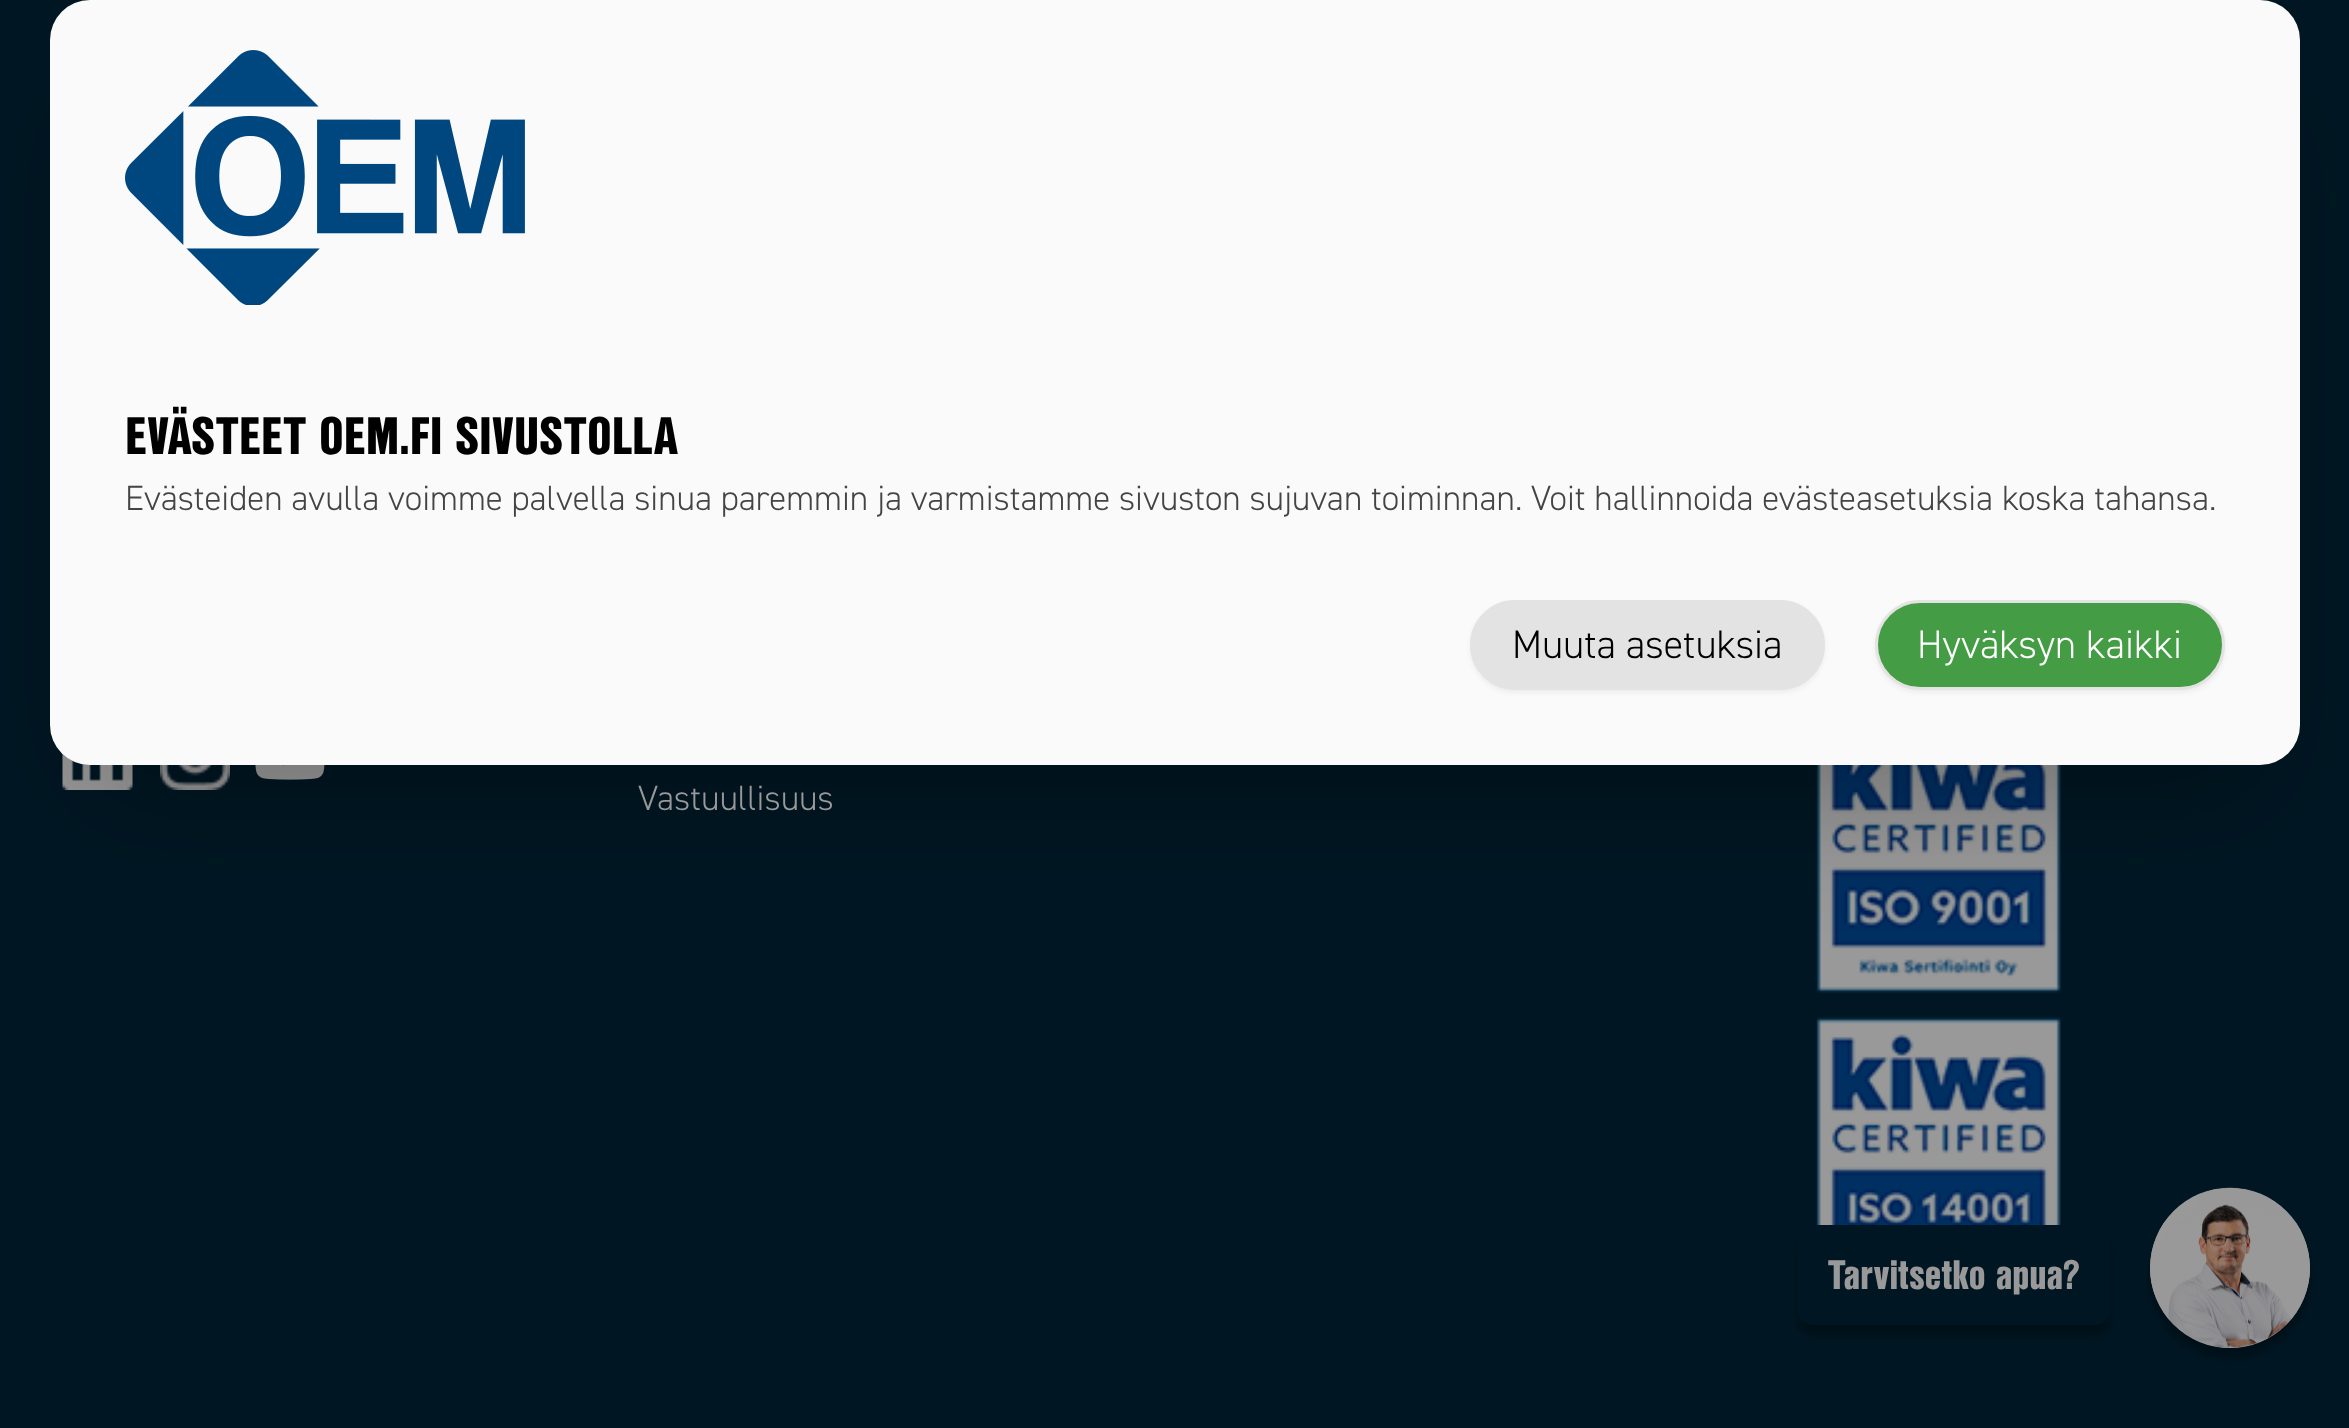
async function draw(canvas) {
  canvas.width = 2349
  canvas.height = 1428
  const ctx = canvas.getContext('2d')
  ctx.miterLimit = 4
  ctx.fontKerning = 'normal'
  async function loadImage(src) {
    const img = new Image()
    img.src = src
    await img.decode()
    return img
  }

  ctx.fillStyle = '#001723'
  ctx.fillRect(0, 0, 2349, 1428)
  ctx.drawImage(await loadImage('image1.png'), 62, 753, 71, 37)
  ctx.drawImage(await loadImage('image2.png'), 160, 765, 70, 25)
  ctx.drawImage(await loadImage('image3.png'), 255, 765, 70, 15)
  ctx.drawImage(await loadImage('image4.png'), 1816, 765, 245, 229)
  ctx.fillStyle = '#00000040'
  ctx.filter = 'blur(62.5px)'
  ctx.beginPath()
  ctx.roundRect(80, 93, 2190, 705, 10)
  ctx.fill()
  ctx.filter = 'none'
  ctx.fillStyle = '#fafafa'
  ctx.beginPath()
  ctx.roundRect(50, 0, 2250, 765, 40)
  ctx.fill()
  ctx.drawImage(await loadImage('image0.png'), 125, 50, 400, 255)
  ctx.font = '900 51.25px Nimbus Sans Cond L'
  ctx.fillStyle = '#000'
  ctx.fillText('EVÄSTEET OEM.FI SIVUSTOLLA', 125, 454)
  ctx.font = '300 35px "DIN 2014"'
  ctx.fillStyle = '#444'
  ctx.fillText('Evästeiden avulla voimme palvella sinua paremmin ja varmistamme sivuston sujuvan toiminnan. Voit hallinnoida evästeasetuksia koska tahansa.', 125, 510)
  ctx.fillStyle = '#0000000d'
  ctx.filter = 'blur(2.5px)'
  ctx.beginPath()
  ctx.roundRect(1470, 603, 355, 90, 45)
  ctx.fill()
  ctx.filter = 'none'
  ctx.fillStyle = '#e3e3e3'
  ctx.beginPath()
  ctx.roundRect(1471.5, 601.5, 352, 87, 43.5)
  ctx.fill()
  ctx.strokeStyle = '#e3e3e3'
  ctx.lineWidth = 3
  ctx.stroke()
  ctx.font = '300 40px "DIN 2014"'
  ctx.fillStyle = '#000'
  ctx.fillText('Muuta asetuksia', 1512, 658)
  ctx.fillStyle = '#0000000d'
  ctx.filter = 'blur(2.5px)'
  ctx.beginPath()
  ctx.roundRect(1875, 603, 350, 90, 45)
  ctx.fill()
  ctx.filter = 'none'
  ctx.fillStyle = '#449d44'
  ctx.beginPath()
  ctx.roundRect(1876.5, 601.5, 347, 87, 43.5)
  ctx.fill()
  ctx.stroke()
  ctx.fillStyle = '#fff'
  ctx.fillText('Hyväksyn kaikki', 1917, 658)
  ctx.font = '300 35px "DIN 2014"'
  ctx.fillStyle = '#999'
  ctx.fillText('Vastuullisuus', 638, 810)
  ctx.drawImage(await loadImage('image5.png'), 1815, 1017, 246, 208)
  ctx.fillStyle = '#0000004d'
  ctx.filter = 'blur(5px)'
  ctx.beginPath()
  ctx.roundRect(1798, 1235, 312, 100, 15)
  ctx.fill()
  ctx.filter = 'none'
  ctx.fillStyle = '#001723'
  ctx.beginPath()
  ctx.roundRect(1798, 1225, 312, 100, 15)
  ctx.fill()
  ctx.font = '900 40px Nimbus Sans Cond L'
  ctx.fillStyle = '#999'
  ctx.fillText('Tarvitsetko apua?', 1828, 1289)
  ctx.fillStyle = '#0000004d'
  ctx.filter = 'blur(5px)'
  ctx.beginPath()
  ctx.roundRect(2150, 1198, 160, 160, 80)
  ctx.fill()
  ctx.filter = 'none'
  ctx.fillStyle = '#999'
  ctx.beginPath()
  ctx.arc(2230, 1268, 80, 0, 2 * Math.PI)
  ctx.fill()
  ctx.drawImage(await loadImage('image6.png'), 2150, 1187, 160, 161)
}

draw(document.querySelector('canvas'))
